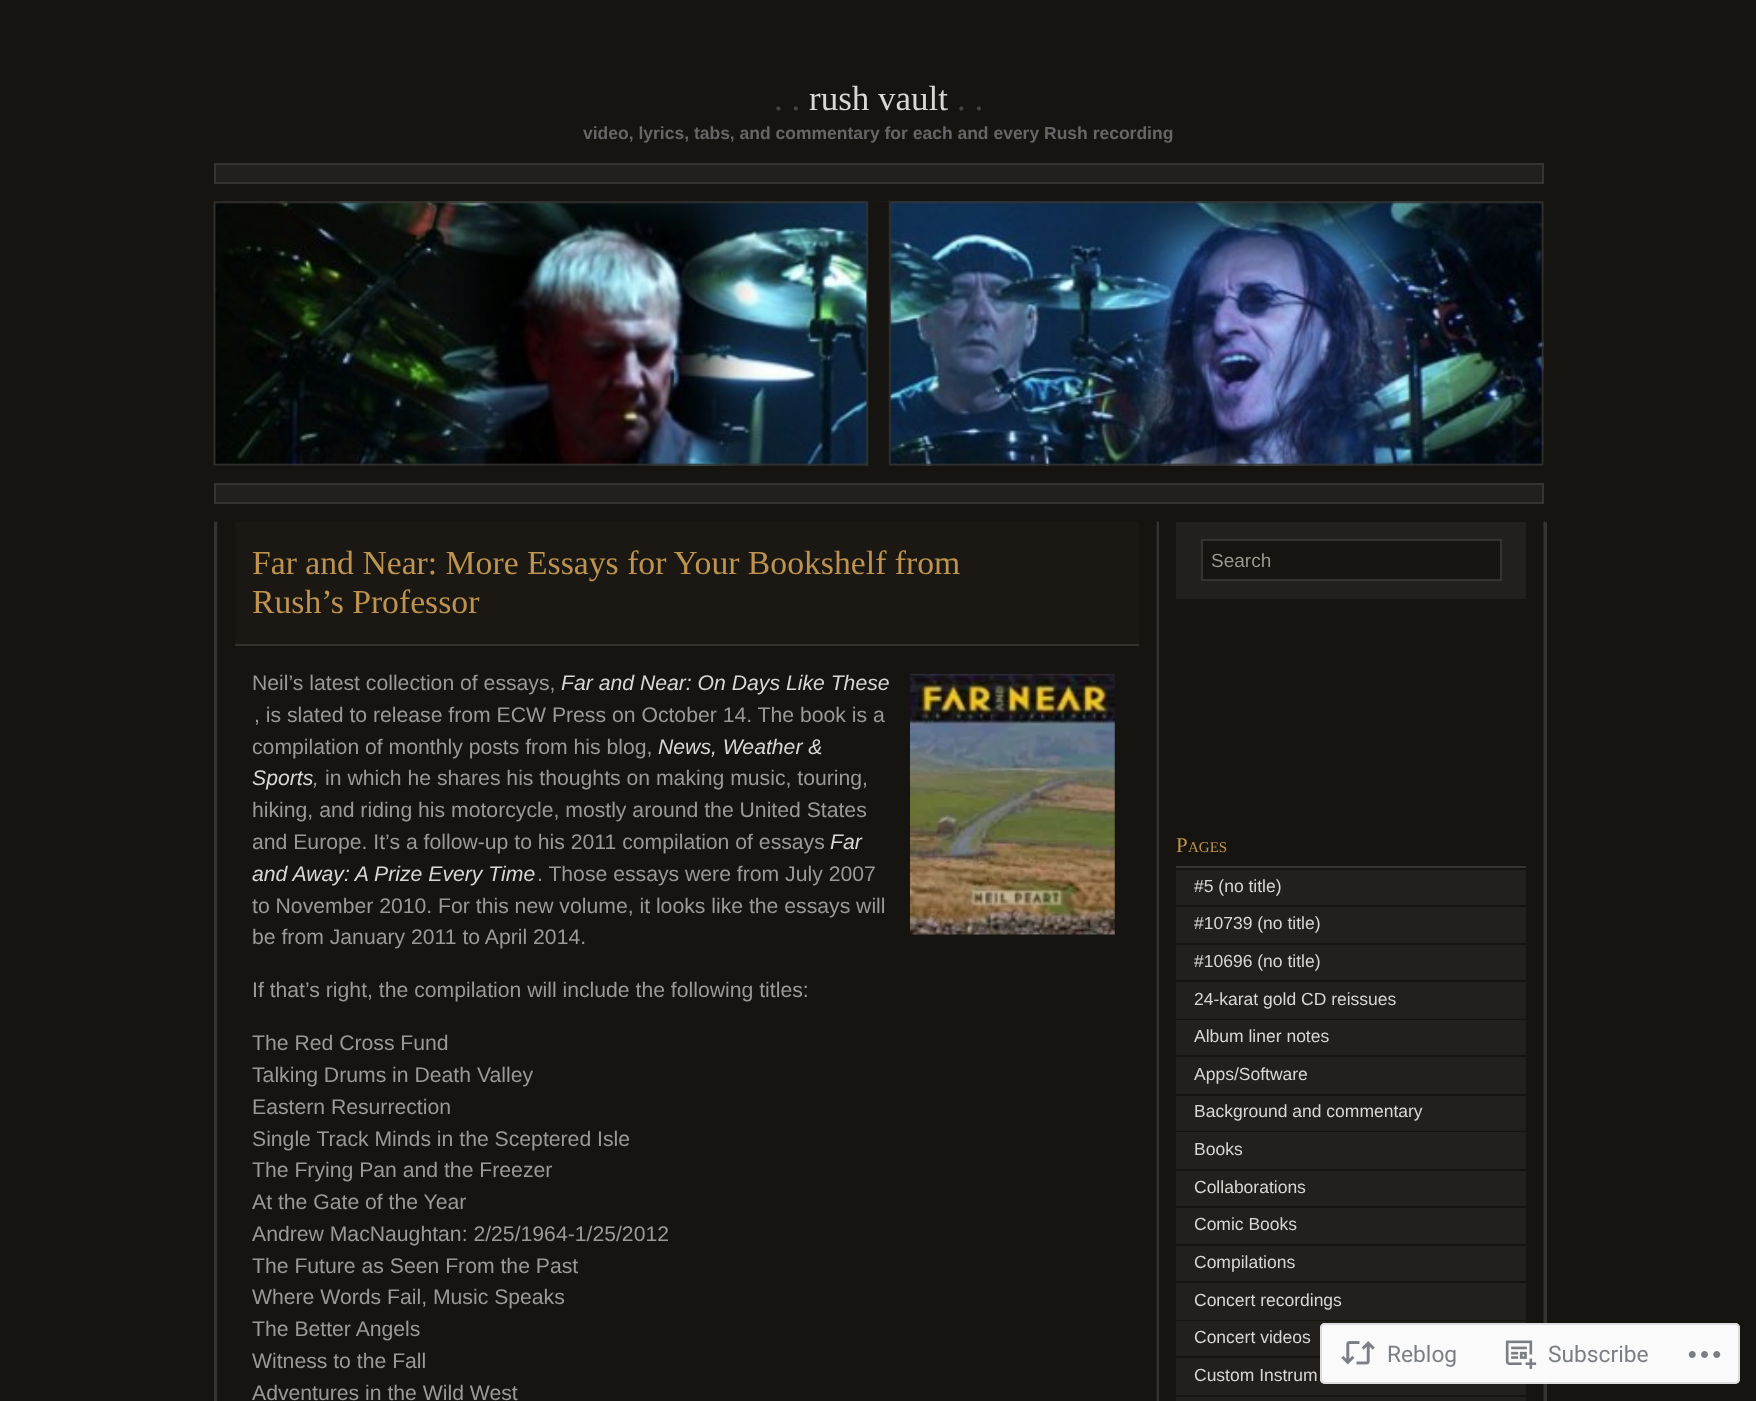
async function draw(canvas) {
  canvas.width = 1756
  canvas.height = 1401
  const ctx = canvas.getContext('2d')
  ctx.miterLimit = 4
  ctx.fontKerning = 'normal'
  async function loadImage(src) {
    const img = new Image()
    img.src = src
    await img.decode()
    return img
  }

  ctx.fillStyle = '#161410'
  ctx.fillRect(0, 0, 1756, 1401)
  ctx.font = '35px Liberation Serif'
  ctx.fillStyle = '#444'
  ctx.fillText('. .', 774, 110)
  ctx.fillStyle = '#d8d7d3'
  ctx.fillText('rush vault', 809, 110)
  ctx.fillStyle = '#444'
  ctx.fillText('. .', 957, 110)
  ctx.font = 'bold 17.5px Liberation Sans'
  ctx.fillStyle = '#666'
  ctx.fillText('video, lyrics, tabs, and commentary for each and every Rush recording', 583, 139)
  ctx.fillStyle = '#22201d'
  ctx.beginPath()
  ctx.rect(215, 164, 1328, 19)
  ctx.fill()
  ctx.strokeStyle = '#363430'
  ctx.lineWidth = 2
  ctx.stroke()
  ctx.drawImage(await loadImage('image0.png'), 213, 201, 1331, 265)
  ctx.drawImage(await loadImage('image1.png'), 213, 201, 1331, 265)
  ctx.beginPath()
  ctx.rect(215, 484, 1328, 19)
  ctx.fill()
  ctx.stroke()
  ctx.drawImage(await loadImage('image2.png'), 215, 521, 1331, 880)
  ctx.fillStyle = '#363430'
  ctx.fillRect(1545, 522, 2, 879)
  ctx.fillRect(214, 522, 3, 879)
  ctx.fillRect(1158, 522, 1, 879)
  ctx.fillStyle = '#1b1814'
  ctx.fillRect(235, 522, 904, 122)
  ctx.fillStyle = '#35302a'
  ctx.fillRect(235, 644, 904, 2)
  ctx.font = '33.7px Liberation Serif'
  ctx.fillStyle = '#bd934f'
  ctx.fillText('Far and Near: More Essays for Your Bookshelf from', 252, 574)
  ctx.fillText('Rush’s Professor', 252, 613)
  ctx.font = '21.2px Liberation Sans'
  ctx.fillStyle = '#999'
  ctx.fillText('Neil’s latest collection of essays,', 252, 690)
  ctx.font = 'italic 21.2px Liberation Sans'
  ctx.fillStyle = '#d8d7d3'
  ctx.fillText('Far and Near: On Days Like These', 561, 690)
  ctx.drawImage(await loadImage('image3.png'), 910, 673, 205, 262)
  ctx.font = '21.2px Liberation Sans'
  ctx.fillStyle = '#999'
  ctx.fillText(', is slated to release from ECW Press on October 14. The book is a', 254, 722)
  ctx.fillText('compilation of monthly posts from his blog,', 252, 754)
  ctx.font = 'italic 21.2px Liberation Sans'
  ctx.fillStyle = '#d8d7d3'
  ctx.fillText('News, Weather &', 658, 754)
  ctx.fillText('Sports', 252, 785)
  ctx.fillStyle = '#999'
  ctx.fillText(',', 313, 785)
  ctx.font = '21.2px Liberation Sans'
  ctx.fillText('in which he shares his thoughts on making music, touring,', 325, 785)
  ctx.fillText('hiking, and riding his motorcycle, mostly around the United States', 252, 817)
  ctx.fillText('and Europe. It’s a follow-up to his 2011 compilation of essays', 252, 849)
  ctx.font = 'italic 21.2px Liberation Sans'
  ctx.fillStyle = '#d8d7d3'
  ctx.fillText('Far', 830, 849)
  ctx.fillText('and Away: A Prize Every Time', 252, 881)
  ctx.font = '21.2px Liberation Sans'
  ctx.fillStyle = '#999'
  ctx.fillText('. Those essays were from July 2007', 537, 881)
  ctx.fillText('to November 2010. For this new volume, it looks like the essays will', 252, 913)
  ctx.fillText('be from January 2011 to April 2014.', 252, 944)
  ctx.fillText('If that’s right, the compilation will include the following titles:', 252, 997)
  ctx.fillText('The Red Cross Fund', 252, 1050)
  ctx.fillText('Talking Drums in Death Valley', 252, 1082)
  ctx.fillText('Eastern Resurrection', 252, 1114)
  ctx.fillText('Single Track Minds in the Sceptered Isle', 252, 1146)
  ctx.fillText('The Frying Pan and the Freezer', 252, 1177)
  ctx.fillText('At the Gate of the Year', 252, 1209)
  ctx.fillText('Andrew MacNaughtan: 2/25/1964-1/25/2012', 252, 1241)
  ctx.fillText('The Future as Seen From the Past', 252, 1273)
  ctx.fillText('Where Words Fail, Music Speaks', 252, 1304)
  ctx.fillText('The Better Angels', 252, 1336)
  ctx.fillText('Witness to the Fall', 252, 1368)
  ctx.fillText('Adventures in the Wild West', 252, 1400)
  ctx.fillStyle = '#22201d'
  ctx.fillRect(1176, 522, 350, 77)
  ctx.fillStyle = '#161410'
  ctx.beginPath()
  ctx.rect(1202, 540, 299, 40)
  ctx.fill()
  ctx.stroke()
  ctx.font = '19px Liberation Sans'
  ctx.fillStyle = '#9c9890'
  ctx.fillText('Search', 1211, 567)
  ctx.font = '21px Liberation Serif'
  ctx.fillStyle = '#bd934f'
  ctx.fillText('P', 1176, 852)
  ctx.font = '15px Liberation Serif'
  ctx.fillText('AGES', 1188, 852)
  ctx.fillStyle = '#363430'
  ctx.fillRect(1176, 866, 350, 2)
  ctx.fillStyle = '#22201d'
  ctx.fillRect(1176, 870, 350, 35)
  ctx.font = '17.5px Liberation Sans'
  ctx.fillStyle = '#d8d7d3'
  ctx.fillText('#5 (no title)', 1194, 892)
  ctx.fillStyle = '#22201d'
  ctx.fillRect(1176, 907, 350, 36)
  ctx.fillStyle = '#d8d7d3'
  ctx.fillText('#10739 (no title)', 1194, 929)
  ctx.fillStyle = '#22201d'
  ctx.fillRect(1176, 945, 350, 35)
  ctx.fillStyle = '#d8d7d3'
  ctx.fillText('#10696 (no title)', 1194, 967)
  ctx.fillStyle = '#22201d'
  ctx.fillRect(1176, 982, 350, 37)
  ctx.fillStyle = '#d8d7d3'
  ctx.fillText('24-karat gold CD reissues', 1194, 1005)
  ctx.fillStyle = '#22201d'
  ctx.fillRect(1176, 1020, 350, 35)
  ctx.fillStyle = '#d8d7d3'
  ctx.fillText('Album liner notes', 1194, 1042)
  ctx.fillStyle = '#22201d'
  ctx.fillRect(1176, 1057, 350, 37)
  ctx.fillStyle = '#d8d7d3'
  ctx.fillText('Apps/Software', 1194, 1080)
  ctx.fillStyle = '#22201d'
  ctx.fillRect(1176, 1096, 350, 35)
  ctx.fillStyle = '#d8d7d3'
  ctx.fillText('Background and commentary', 1194, 1117)
  ctx.fillStyle = '#22201d'
  ctx.fillRect(1176, 1132, 350, 37)
  ctx.fillStyle = '#d8d7d3'
  ctx.fillText('Books', 1194, 1155)
  ctx.fillStyle = '#22201d'
  ctx.fillRect(1176, 1171, 350, 35)
  ctx.fillStyle = '#d8d7d3'
  ctx.fillText('Collaborations', 1194, 1193)
  ctx.fillStyle = '#22201d'
  ctx.fillRect(1176, 1208, 350, 36)
  ctx.fillStyle = '#d8d7d3'
  ctx.fillText('Comic Books', 1194, 1230)
  ctx.fillStyle = '#22201d'
  ctx.fillRect(1176, 1246, 350, 35)
  ctx.fillStyle = '#d8d7d3'
  ctx.fillText('Compilations', 1194, 1268)
  ctx.fillStyle = '#22201d'
  ctx.fillRect(1176, 1283, 350, 37)
  ctx.fillStyle = '#d8d7d3'
  ctx.fillText('Concert recordings', 1194, 1306)
  ctx.fillStyle = '#22201d'
  ctx.fillRect(1176, 1321, 350, 35)
  ctx.fillStyle = '#d8d7d3'
  ctx.fillText('Concert videos', 1194, 1343)
  ctx.fillStyle = '#22201d'
  ctx.fillRect(1176, 1358, 350, 37)
  ctx.fillStyle = '#d8d7d3'
  ctx.fillText('Custom Instrum', 1194, 1381)
  ctx.fillStyle = '#22201d'
  ctx.fillRect(1176, 1397, 350, 4)
  ctx.fillStyle = '#fffffffa'
  ctx.beginPath()
  ctx.roundRect(1320, 1323, 420, 61, 5)
  ctx.fill()
  ctx.beginPath()
  ctx.roundRect(1321, 1324, 418, 59, 4)
  ctx.strokeStyle = '#dcdcdefa'
  ctx.stroke()
  ctx.drawImage(await loadImage('image4.png'), 1341, 1341, 34, 24)
  ctx.font = '22.75px Roboto'
  ctx.fillStyle = '#7b7f84'
  ctx.fillText('Reblog', 1387, 1362)
  ctx.drawImage(await loadImage('image5.png'), 1505, 1340, 32, 29)
  ctx.fillText('Subscribe', 1548, 1362)
  ctx.drawImage(await loadImage('image6.png'), 1688, 1351, 33, 7)
}

draw(document.querySelector('canvas'))
